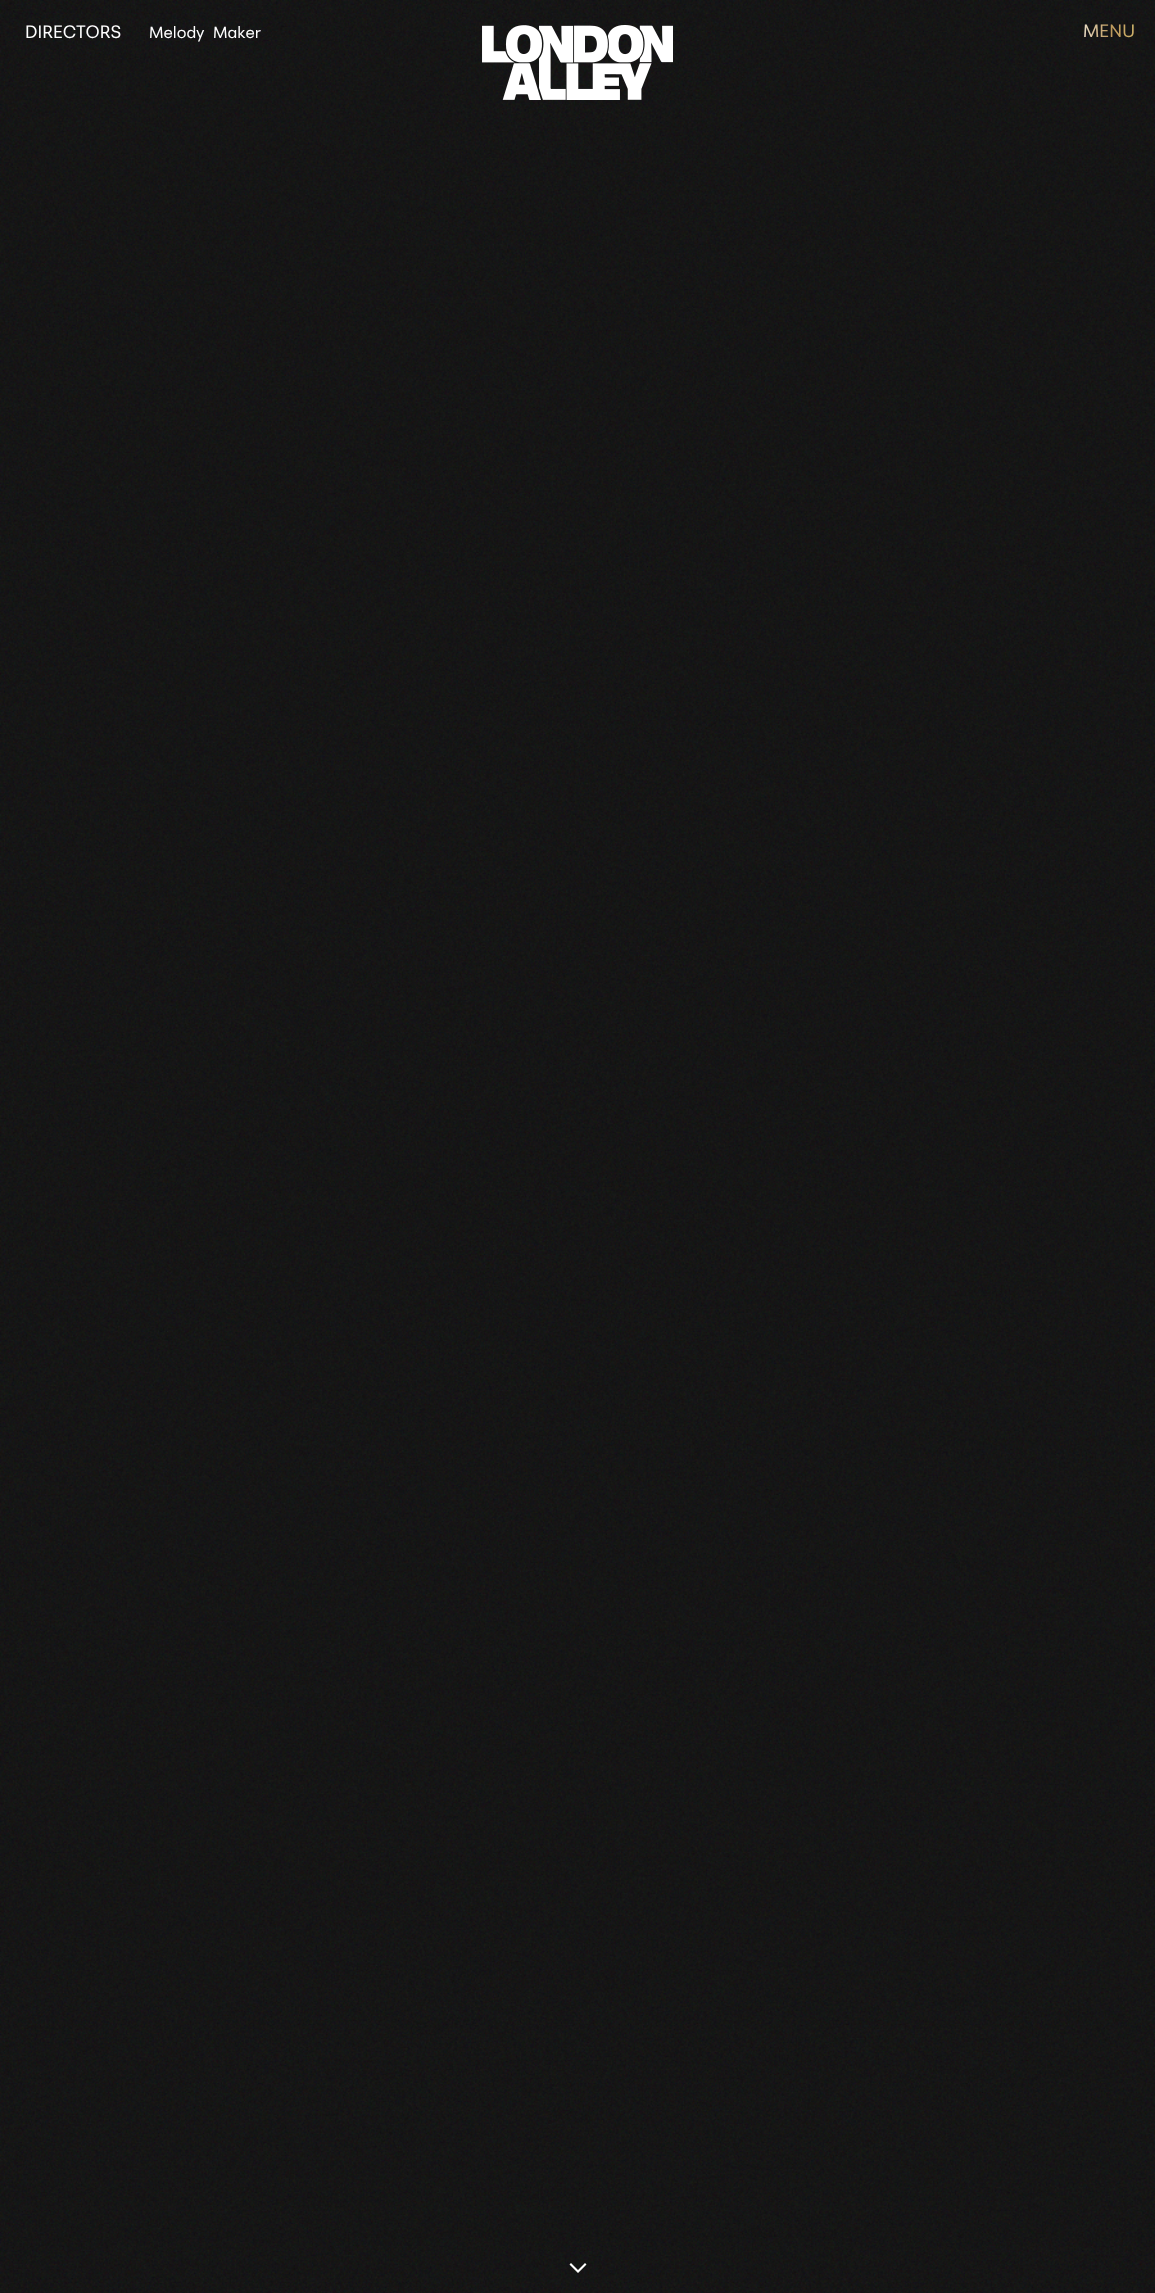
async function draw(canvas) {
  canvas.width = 1155
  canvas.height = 2293
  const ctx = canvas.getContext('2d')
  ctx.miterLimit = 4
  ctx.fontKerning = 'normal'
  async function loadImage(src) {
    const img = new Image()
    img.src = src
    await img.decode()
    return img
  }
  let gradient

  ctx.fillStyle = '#fff'
  ctx.fillRect(0, 0, 1155, 2293)
  ctx.drawImage(await loadImage('image0.png'), 0, 0, 1155, 2293)
  ctx.font = '18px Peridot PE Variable'
  ctx.fillText('DIRECTORS', 25, 38)
  ctx.wordSpacing = '5px'
  ctx.font = '16px Peridot PE Variable'
  ctx.fillText('Melody Maker', 149, 38)
  ctx.drawImage(await loadImage('image1.png'), 482, 25, 191, 75)
  ctx.wordSpacing = '0px'
  ctx.font = '18px Peridot PE Variable'
  gradient = ctx.createLinearGradient(1068, 26, 1152, 25)
  gradient.addColorStop(0, '#fff')
  gradient.addColorStop(0.5, '#bc995c')
  gradient.addColorStop(1, '#dec576')
  ctx.fillStyle = gradient
  ctx.fillText('MENU', 1083, 37)
  ctx.fillStyle = '#fff'
  ctx.beginPath()
  ctx.moveTo(585, 2263)
  ctx.lineTo(578, 2270)
  ctx.lineTo(571, 2263)
  ctx.lineTo(569.5, 2264.5)
  ctx.lineTo(578, 2273)
  ctx.lineTo(586.5, 2264.5)
  ctx.closePath()
  ctx.fill()
}

draw(document.querySelector('canvas'))
